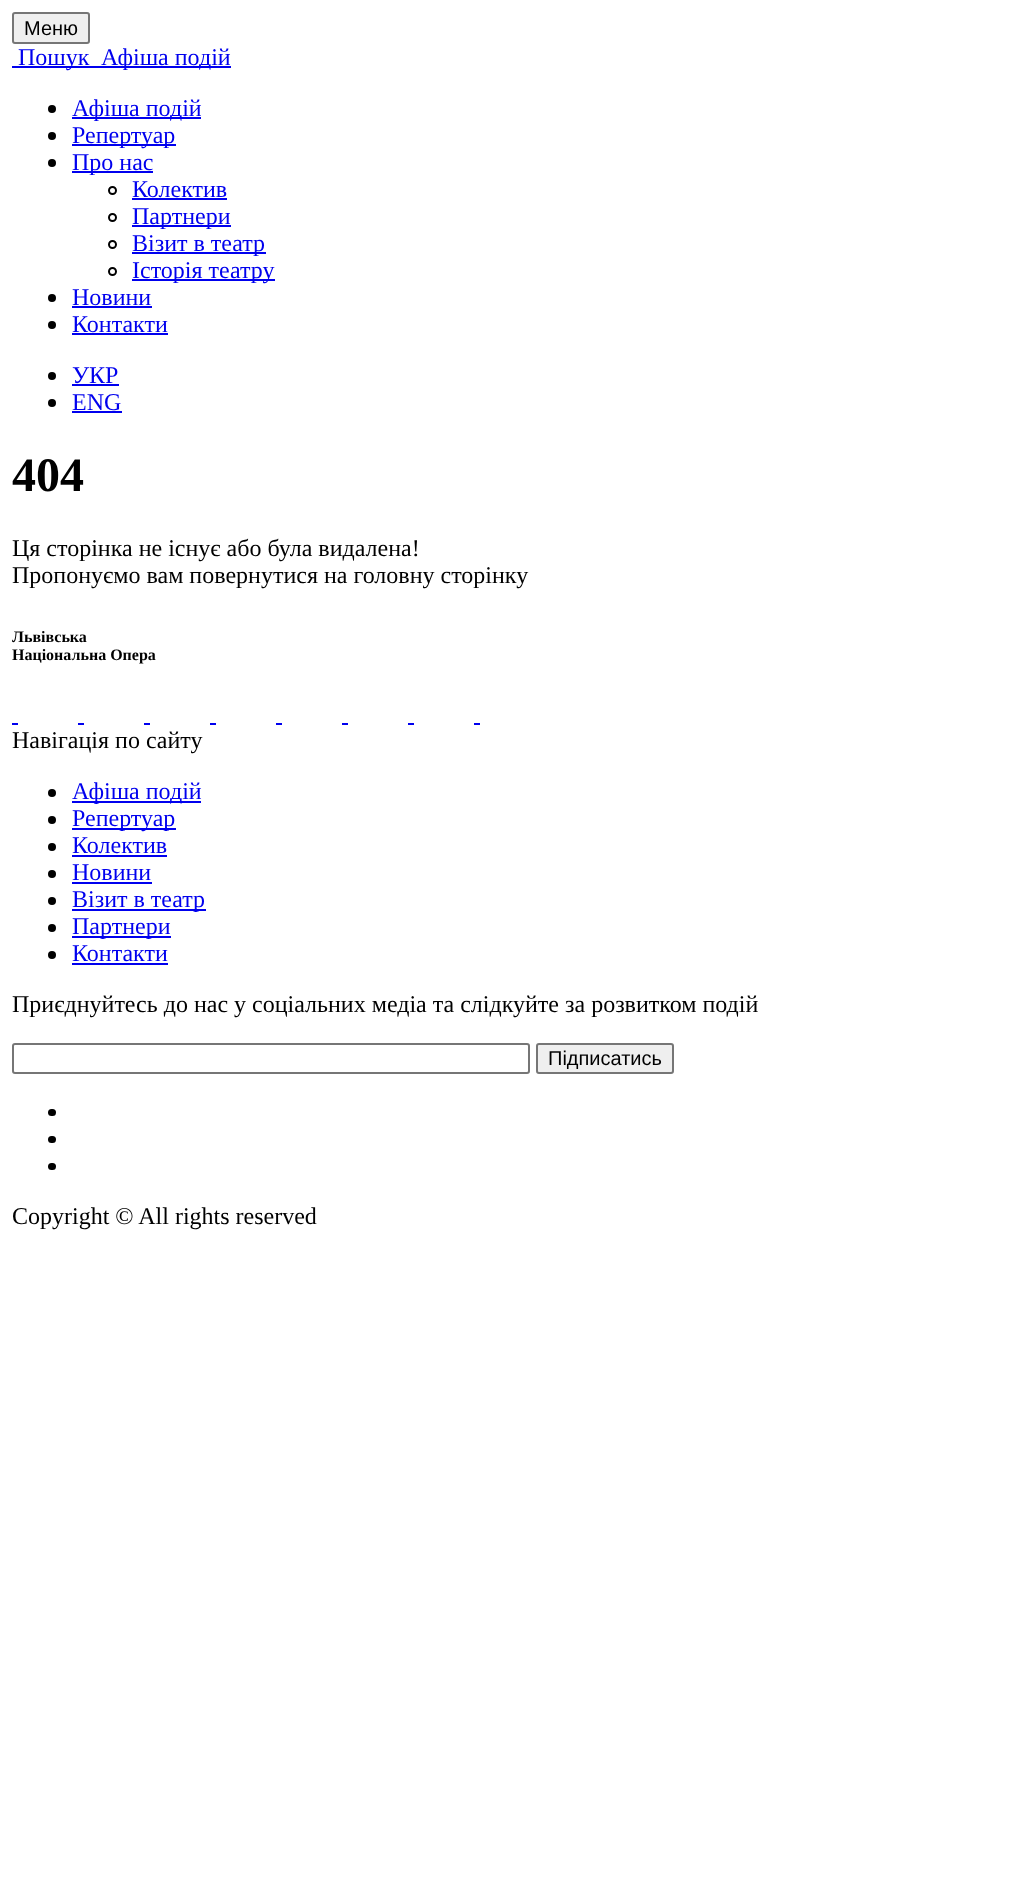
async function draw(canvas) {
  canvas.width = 1019
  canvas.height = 1899
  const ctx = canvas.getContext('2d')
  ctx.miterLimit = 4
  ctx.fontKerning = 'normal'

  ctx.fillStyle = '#fff'
  ctx.fillRect(0, 0, 1019, 1899)
  ctx.fillStyle = '#efefef'
  ctx.beginPath()
  ctx.roundRect(13, 13, 76, 30, 2)
  ctx.fill()
  ctx.strokeStyle = '#767676'
  ctx.lineWidth = 2
  ctx.stroke()
  ctx.font = '20px Liberation Sans'
  ctx.fillStyle = '#000'
  ctx.fillText('Меню', 24, 35)
  ctx.fillStyle = '#00e'
  ctx.fillRect(12, 66, 219, 2)
  ctx.font = '24px Liberation Serif'
  ctx.fillText('Пошук', 18, 65)
  ctx.fillText('Афіша подій', 101, 65)
  ctx.fillStyle = '#000'
  ctx.beginPath()
  ctx.arc(52, 109, 4, 0, 2 * Math.PI)
  ctx.fill()
  ctx.fillStyle = '#00e'
  ctx.fillRect(72, 117, 129, 2)
  ctx.fillText('Афіша подій', 72, 116)
  ctx.fillStyle = '#000'
  ctx.beginPath()
  ctx.arc(52, 136, 4, 0, 2 * Math.PI)
  ctx.fill()
  ctx.fillStyle = '#00e'
  ctx.fillRect(72, 144, 104, 2)
  ctx.fillText('Репертуар', 72, 143)
  ctx.fillStyle = '#000'
  ctx.beginPath()
  ctx.arc(52, 163, 4, 0, 2 * Math.PI)
  ctx.fill()
  ctx.fillStyle = '#00e'
  ctx.fillRect(72, 171, 81, 2)
  ctx.fillText('Про нас', 72, 170)
  ctx.beginPath()
  ctx.arc(112.5, 190.5, 3.5, 0, 2 * Math.PI)
  ctx.strokeStyle = '#000'
  ctx.stroke()
  ctx.fillText('Колектив', 132, 197)
  ctx.fillRect(132, 198, 95, 2)
  ctx.beginPath()
  ctx.arc(112.5, 217.5, 3.5, 0, 2 * Math.PI)
  ctx.stroke()
  ctx.fillRect(132, 225, 99, 2)
  ctx.fillText('Партнери', 132, 224)
  ctx.beginPath()
  ctx.arc(112.5, 244.5, 3.5, 0, 2 * Math.PI)
  ctx.stroke()
  ctx.fillRect(132, 252, 134, 2)
  ctx.fillText('Візит в театр', 132, 251)
  ctx.beginPath()
  ctx.arc(112.5, 271.5, 3.5, 0, 2 * Math.PI)
  ctx.stroke()
  ctx.fillRect(132, 279, 143, 2)
  ctx.fillText('Історія театру', 132, 278)
  ctx.fillStyle = '#000'
  ctx.beginPath()
  ctx.arc(52, 298, 4, 0, 2 * Math.PI)
  ctx.fill()
  ctx.fillStyle = '#00e'
  ctx.fillText('Новини', 72, 305)
  ctx.fillRect(72, 306, 80, 2)
  ctx.fillStyle = '#000'
  ctx.beginPath()
  ctx.arc(52, 325, 4, 0, 2 * Math.PI)
  ctx.fill()
  ctx.fillStyle = '#00e'
  ctx.fillText('Контакти', 72, 332)
  ctx.fillRect(72, 333, 96, 2)
  ctx.fillStyle = '#000'
  ctx.beginPath()
  ctx.arc(52, 376, 4, 0, 2 * Math.PI)
  ctx.fill()
  ctx.fillStyle = '#00e'
  ctx.fillText('УКР', 72, 383)
  ctx.fillRect(72, 384, 47, 2)
  ctx.fillStyle = '#000'
  ctx.beginPath()
  ctx.arc(52, 403, 4, 0, 2 * Math.PI)
  ctx.fill()
  ctx.fillStyle = '#00e'
  ctx.fillText('ENG', 72, 410)
  ctx.fillRect(72, 411, 50, 2)
  ctx.font = 'bold 48px Liberation Serif'
  ctx.fillStyle = '#000'
  ctx.fillText('404', 12, 491)
  ctx.font = '24px Liberation Serif'
  ctx.fillText('Ця сторінка не існує або була видалена!', 12, 556)
  ctx.fillText('Пропонуємо вам повернутися на головну сторінку', 12, 583)
  ctx.font = 'bold 16px Liberation Serif'
  ctx.fillText('Львiвська', 12, 642)
  ctx.fillText('Нацiональна Опера', 12, 660)
  ctx.fillStyle = '#00e'
  ctx.fillRect(12, 723, 6, 2)
  ctx.fillRect(78, 723, 6, 2)
  ctx.fillRect(144, 723, 6, 2)
  ctx.fillRect(210, 723, 6, 2)
  ctx.fillRect(276, 723, 6, 2)
  ctx.fillRect(342, 723, 6, 2)
  ctx.fillRect(408, 723, 6, 2)
  ctx.fillRect(474, 723, 6, 2)
  ctx.font = '24px Liberation Serif'
  ctx.fillStyle = '#000'
  ctx.fillText('Навiгацiя по сайту', 12, 748)
  ctx.beginPath()
  ctx.arc(52, 793, 4, 0, 2 * Math.PI)
  ctx.fill()
  ctx.fillStyle = '#00e'
  ctx.fillRect(72, 801, 129, 2)
  ctx.fillText('Афiша подiй', 72, 799)
  ctx.fillStyle = '#000'
  ctx.beginPath()
  ctx.arc(52, 820, 4, 0, 2 * Math.PI)
  ctx.fill()
  ctx.fillStyle = '#00e'
  ctx.fillRect(72, 828, 104, 2)
  ctx.fillText('Репертуар', 72, 826)
  ctx.fillStyle = '#000'
  ctx.beginPath()
  ctx.arc(52, 847, 4, 0, 2 * Math.PI)
  ctx.fill()
  ctx.fillStyle = '#00e'
  ctx.fillText('Колектив', 72, 853)
  ctx.fillRect(72, 855, 95, 2)
  ctx.fillStyle = '#000'
  ctx.beginPath()
  ctx.arc(52, 874, 4, 0, 2 * Math.PI)
  ctx.fill()
  ctx.fillStyle = '#00e'
  ctx.fillText('Новини', 72, 880)
  ctx.fillRect(72, 882, 80, 2)
  ctx.fillStyle = '#000'
  ctx.beginPath()
  ctx.arc(52, 901, 4, 0, 2 * Math.PI)
  ctx.fill()
  ctx.fillStyle = '#00e'
  ctx.fillRect(72, 909, 134, 2)
  ctx.fillText('Візит в театр', 72, 907)
  ctx.fillStyle = '#000'
  ctx.beginPath()
  ctx.arc(52, 928, 4, 0, 2 * Math.PI)
  ctx.fill()
  ctx.fillStyle = '#00e'
  ctx.fillRect(72, 936, 99, 2)
  ctx.fillText('Партнери', 72, 934)
  ctx.fillStyle = '#000'
  ctx.beginPath()
  ctx.arc(52, 955, 4, 0, 2 * Math.PI)
  ctx.fill()
  ctx.fillStyle = '#00e'
  ctx.fillText('Контакти', 72, 961)
  ctx.fillRect(72, 963, 96, 2)
  ctx.fillStyle = '#000'
  ctx.fillText('Приєднуйтесь до нас у соціальних медіа та слідкуйте за розвитком подій', 12, 1012)
  ctx.beginPath()
  ctx.roundRect(13, 1044, 516, 29, 2)
  ctx.strokeStyle = '#767676'
  ctx.stroke()
  ctx.fillStyle = '#efefef'
  ctx.beginPath()
  ctx.roundRect(537, 1044, 136, 29, 2)
  ctx.fill()
  ctx.stroke()
  ctx.font = '20px Liberation Sans'
  ctx.fillStyle = '#000'
  ctx.fillText('Пiдписатись', 548, 1065)
  ctx.beginPath()
  ctx.roundRect(48, 1109, 8, 7, 3.5)
  ctx.fill()
  ctx.beginPath()
  ctx.roundRect(48, 1136, 8, 7, 3.5)
  ctx.fill()
  ctx.beginPath()
  ctx.roundRect(48, 1163, 8, 7, 3.5)
  ctx.fill()
  ctx.font = '24px Liberation Serif'
  ctx.fillText('Copyright © All rights reserved', 12, 1224)
}

draw(document.querySelector('canvas'))
